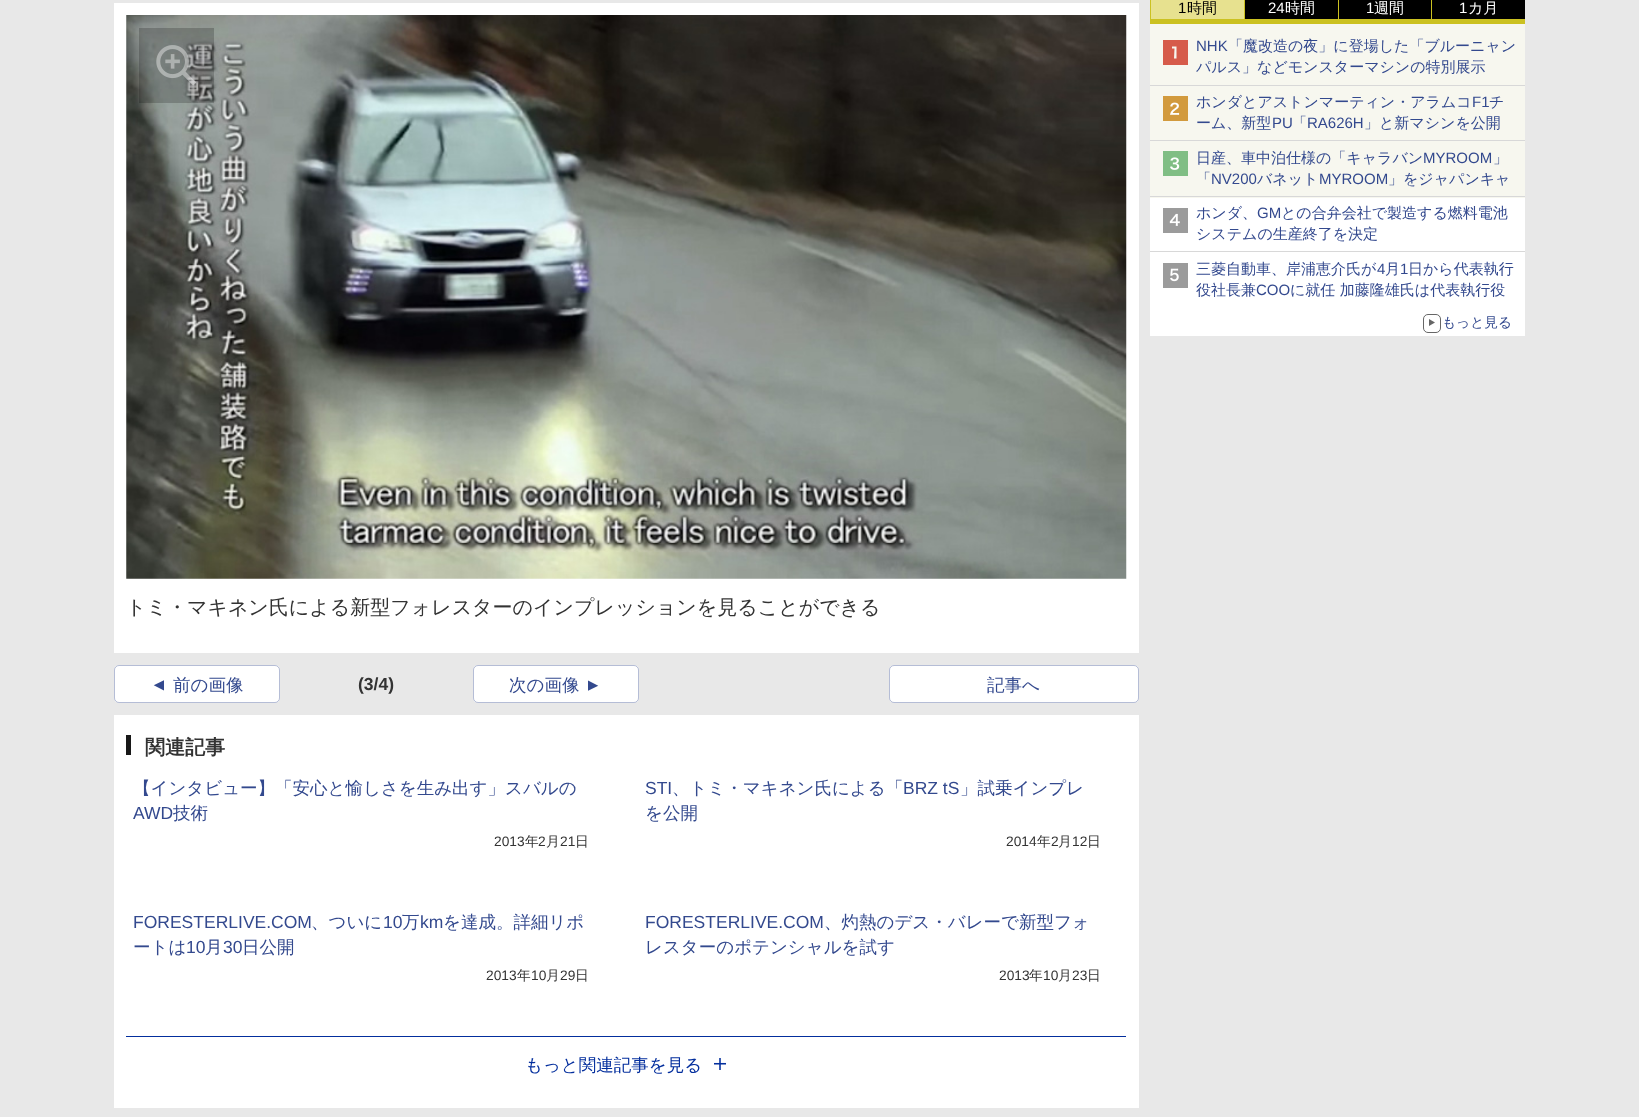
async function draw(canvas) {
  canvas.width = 1639
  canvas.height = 1117
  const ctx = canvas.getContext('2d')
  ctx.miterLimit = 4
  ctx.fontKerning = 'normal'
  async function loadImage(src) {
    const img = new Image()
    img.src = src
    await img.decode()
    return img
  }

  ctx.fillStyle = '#e8e8e8'
  ctx.fillRect(0, 0, 1639, 1117)
  ctx.fillStyle = '#e7e18f'
  ctx.fillRect(1151, 0, 93, 19)
  ctx.fillStyle = '#cbc121'
  ctx.fillRect(1150, 19, 375, 5)
  ctx.fillRect(1150, 0, 1, 24)
  ctx.font = '15px Liberation Sans'
  ctx.fillStyle = '#000'
  ctx.fillText('1', 1178, 13)
  ctx.font = '500 15px WenQuanYi Zen Hei'
  ctx.fillText('時間', 1187, 13)
  ctx.fillRect(1245, 0, 93, 19)
  ctx.fillStyle = '#cbc121'
  ctx.fillRect(1244, 0, 1, 24)
  ctx.font = '15px Liberation Sans'
  ctx.fillStyle = '#fff'
  ctx.fillText('24', 1268, 13)
  ctx.font = '500 15px WenQuanYi Zen Hei'
  ctx.fillText('時間', 1285, 13)
  ctx.fillStyle = '#000'
  ctx.fillRect(1339, 0, 92, 19)
  ctx.fillStyle = '#cbc121'
  ctx.fillRect(1338, 0, 1, 24)
  ctx.font = '15px Liberation Sans'
  ctx.fillStyle = '#fff'
  ctx.fillText('1', 1366, 13)
  ctx.font = '500 15px WenQuanYi Zen Hei'
  ctx.fillText('週間', 1374, 13)
  ctx.fillStyle = '#000'
  ctx.fillRect(1432, 0, 93, 19)
  ctx.fillStyle = '#cbc121'
  ctx.fillRect(1431, 0, 1, 24)
  ctx.font = '15px Liberation Sans'
  ctx.fillStyle = '#fff'
  ctx.fillText('1', 1459, 13)
  ctx.font = '500 15px WenQuanYi Zen Hei'
  ctx.fillText('カ月', 1468, 13)
  ctx.fillStyle = '#f7f7ef'
  ctx.fillRect(1150, 24, 375, 61)
  ctx.fillStyle = '#d8d8d8'
  ctx.fillRect(1150, 85, 375, 1)
  ctx.fillStyle = '#d65b4a'
  ctx.fillRect(1163, 40, 25, 25)
  ctx.fillStyle = '#f7f7ef'
  ctx.beginPath()
  ctx.moveTo(1176.5, 58.5)
  ctx.lineTo(1176.5, 46.5)
  ctx.lineTo(1172, 46.5)
  ctx.lineTo(1172, 48.5)
  ctx.lineTo(1174.5, 48.5)
  ctx.lineTo(1174, 58.5)
  ctx.closePath()
  ctx.fill()
  ctx.font = '15px Liberation Sans'
  ctx.fillStyle = '#33498e'
  ctx.fillText('NHK', 1196, 51)
  ctx.font = '500 15px WenQuanYi Zen Hei'
  ctx.fillText('「魔改造の夜」に登場した「ブルーニャン', 1228, 51)
  ctx.fillText('パルス」などモンスターマシンの特別展示', 1196, 72)
  ctx.fillStyle = '#f7f7ef'
  ctx.fillRect(1150, 86, 375, 54)
  ctx.fillStyle = '#d8d8d8'
  ctx.fillRect(1150, 140, 375, 1)
  ctx.drawImage(await loadImage('image0.png'), 1163, 96, 25, 25)
  ctx.fillStyle = '#33498e'
  ctx.fillText('ホンダとアストンマーティン・アラムコ', 1196, 107)
  ctx.font = '15px Liberation Sans'
  ctx.fillText('F1', 1472, 107)
  ctx.font = '500 15px WenQuanYi Zen Hei'
  ctx.fillText('チ', 1489, 107)
  ctx.fillText('ーム、新型', 1196, 128)
  ctx.font = '15px Liberation Sans'
  ctx.fillText('PU', 1272, 128)
  ctx.font = '500 15px WenQuanYi Zen Hei'
  ctx.fillText('「', 1292, 128)
  ctx.font = '15px Liberation Sans'
  ctx.fillText('RA626H', 1307, 128)
  ctx.font = '500 15px WenQuanYi Zen Hei'
  ctx.fillText('」と新マシンを公開', 1364, 128)
  ctx.fillStyle = '#f7f7ef'
  ctx.fillRect(1150, 141, 375, 57)
  ctx.fillStyle = '#d8d8d8'
  ctx.fillRect(1150, 196, 375, 1)
  ctx.drawImage(await loadImage('image1.png'), 1163, 151, 25, 25)
  ctx.fillStyle = '#33498e'
  ctx.fillText('日産、車中泊仕様の「キャラバン', 1196, 163)
  ctx.font = '15px Liberation Sans'
  ctx.fillText('MYROOM', 1423, 163)
  ctx.font = '500 15px WenQuanYi Zen Hei'
  ctx.fillText('」', 1493, 163)
  ctx.fillText('「', 1196, 184)
  ctx.font = '15px Liberation Sans'
  ctx.fillText('NV200', 1211, 184)
  ctx.font = '500 15px WenQuanYi Zen Hei'
  ctx.fillText('バネット', 1257, 184)
  ctx.font = '15px Liberation Sans'
  ctx.fillText('MYROOM', 1319, 184)
  ctx.font = '500 15px WenQuanYi Zen Hei'
  ctx.fillText('」をジャパンキャ', 1388, 184)
  ctx.fillStyle = '#fff'
  ctx.fillRect(1150, 198, 375, 138)
  ctx.fillStyle = '#d8d8d8'
  ctx.fillRect(1150, 251, 375, 1)
  ctx.drawImage(await loadImage('image2.png'), 1163, 208, 25, 25)
  ctx.fillStyle = '#33498e'
  ctx.fillText('ホンダ、', 1196, 218)
  ctx.font = '15px Liberation Sans'
  ctx.fillText('GM', 1257, 218)
  ctx.font = '500 15px WenQuanYi Zen Hei'
  ctx.fillText('との合弁会社で製造する燃料電池', 1281, 218)
  ctx.fillText('システムの生産終了を決定', 1196, 239)
  ctx.drawImage(await loadImage('image3.png'), 1163, 263, 25, 25)
  ctx.fillText('三菱自動車、岸浦恵介氏が', 1196, 274)
  ctx.font = '15px Liberation Sans'
  ctx.fillText('4', 1377, 274)
  ctx.font = '500 15px WenQuanYi Zen Hei'
  ctx.fillText('月', 1385, 274)
  ctx.font = '15px Liberation Sans'
  ctx.fillText('1', 1400, 274)
  ctx.font = '500 15px WenQuanYi Zen Hei'
  ctx.fillText('日から代表執行', 1408, 274)
  ctx.fillText('役社長兼', 1196, 295)
  ctx.font = '15px Liberation Sans'
  ctx.fillText('COO', 1256, 295)
  ctx.font = '500 15px WenQuanYi Zen Hei'
  ctx.fillText('に就任 加藤隆雄氏は代表執行役', 1290, 295)
  ctx.beginPath()
  ctx.roundRect(1423.5, 314.5, 17, 18, 4.5)
  ctx.strokeStyle = '#666'
  ctx.stroke()
  ctx.font = '500 13.75px WenQuanYi Zen Hei'
  ctx.fillText('もっと見る', 1442, 327)
  ctx.fillStyle = '#666'
  ctx.beginPath()
  ctx.moveTo(1429, 326)
  ctx.lineTo(1429, 319)
  ctx.lineTo(1435, 322.5)
  ctx.closePath()
  ctx.fill()
  ctx.fillStyle = '#fff'
  ctx.fillRect(114, 3, 1025, 650)
  ctx.drawImage(await loadImage('image4.png'), 126, 15, 1001, 564)
  ctx.fillStyle = '#00000033'
  ctx.fillRect(139, 28, 75, 75)
  ctx.drawImage(await loadImage('image5.png'), 156, 45, 40, 41)
  ctx.font = '500 20px WenQuanYi Zen Hei'
  ctx.fillStyle = '#333'
  ctx.fillText('トミ・マキネン氏による新型フォレスターのインプレッションを見ることができる', 126, 614)
  ctx.fillStyle = '#fff'
  ctx.beginPath()
  ctx.roundRect(114, 665, 166, 38, 5)
  ctx.fill()
  ctx.beginPath()
  ctx.roundRect(114.5, 665.5, 165, 37, 4.5)
  ctx.strokeStyle = '#32498e5c'
  ctx.stroke()
  ctx.font = '17.5px Liberation Sans'
  ctx.fillStyle = '#33498e'
  ctx.save()
  ctx.translate(164, 694)
  ctx.rotate(-90 * Math.PI / 180)
  ctx.fillText('▲', 0, 0)
  ctx.restore()
  ctx.font = '500 17.5px WenQuanYi Zen Hei'
  ctx.fillText('前の画像', 173, 691)
  ctx.font = 'bold 17.5px Liberation Sans'
  ctx.fillStyle = '#333'
  ctx.fillText('(3/4)', 358, 690)
  ctx.fillStyle = '#fff'
  ctx.beginPath()
  ctx.roundRect(473, 665, 166, 38, 5)
  ctx.fill()
  ctx.beginPath()
  ctx.roundRect(473.5, 665.5, 165, 37, 4.5)
  ctx.stroke()
  ctx.font = '500 17.5px WenQuanYi Zen Hei'
  ctx.fillStyle = '#33498e'
  ctx.fillText('次の画像', 509, 691)
  ctx.font = '17.5px Liberation Sans'
  ctx.save()
  ctx.translate(588, 677)
  ctx.rotate(90 * Math.PI / 180)
  ctx.fillText('▲', 0, 0)
  ctx.restore()
  ctx.fillStyle = '#fff'
  ctx.beginPath()
  ctx.roundRect(889, 665, 250, 38, 5)
  ctx.fill()
  ctx.beginPath()
  ctx.roundRect(889.5, 665.5, 249, 37, 4.5)
  ctx.stroke()
  ctx.font = '500 17.5px WenQuanYi Zen Hei'
  ctx.fillStyle = '#33498e'
  ctx.fillText('記事へ', 987, 691)
  ctx.fillStyle = '#fff'
  ctx.fillRect(114, 715, 1025, 393)
  ctx.fillStyle = '#181818'
  ctx.fillRect(126, 735, 5, 20)
  ctx.font = 'bold 20px WenQuanYi Zen Hei'
  ctx.fillStyle = '#333'
  ctx.fillText('関連記事', 145, 754)
  ctx.font = '500 17.5px WenQuanYi Zen Hei'
  ctx.fillStyle = '#33498e'
  ctx.fillText('【インタビュー】「安心と愉しさを生み出す」スバルの', 133, 794)
  ctx.font = '17.5px Liberation Sans'
  ctx.fillText('AWD', 133, 819)
  ctx.font = '500 17.5px WenQuanYi Zen Hei'
  ctx.fillText('技術', 173, 819)
  ctx.font = '13.75px Liberation Sans'
  ctx.fillStyle = '#333'
  ctx.fillText('2013', 494, 846)
  ctx.font = '500 13.75px WenQuanYi Zen Hei'
  ctx.fillText('年', 525, 846)
  ctx.font = '13.75px Liberation Sans'
  ctx.fillText('2', 538, 846)
  ctx.font = '500 13.75px WenQuanYi Zen Hei'
  ctx.fillText('月', 546, 846)
  ctx.font = '13.75px Liberation Sans'
  ctx.fillText('21', 560, 846)
  ctx.font = '500 13.75px WenQuanYi Zen Hei'
  ctx.fillText('日', 575, 846)
  ctx.font = '17.5px Liberation Sans'
  ctx.fillStyle = '#33498e'
  ctx.fillText('STI', 645, 794)
  ctx.font = '500 17.5px WenQuanYi Zen Hei'
  ctx.fillText('、トミ・マキネン氏による「', 672, 794)
  ctx.font = '17.5px Liberation Sans'
  ctx.fillText('BRZ tS', 903, 794)
  ctx.font = '500 17.5px WenQuanYi Zen Hei'
  ctx.fillText('」試乗インプレ', 960, 794)
  ctx.fillText('を公開', 645, 819)
  ctx.font = '13.75px Liberation Sans'
  ctx.fillStyle = '#333'
  ctx.fillText('2014', 1006, 846)
  ctx.font = '500 13.75px WenQuanYi Zen Hei'
  ctx.fillText('年', 1037, 846)
  ctx.font = '13.75px Liberation Sans'
  ctx.fillText('2', 1051, 846)
  ctx.font = '500 13.75px WenQuanYi Zen Hei'
  ctx.fillText('月', 1058, 846)
  ctx.font = '13.75px Liberation Sans'
  ctx.fillText('12', 1072, 846)
  ctx.font = '500 13.75px WenQuanYi Zen Hei'
  ctx.fillText('日', 1087, 846)
  ctx.font = '17.5px Liberation Sans'
  ctx.fillStyle = '#33498e'
  ctx.fillText('FORESTERLIVE.COM', 133, 928)
  ctx.font = '500 17.5px WenQuanYi Zen Hei'
  ctx.fillText('、ついに', 311, 928)
  ctx.font = '17.5px Liberation Sans'
  ctx.fillText('10', 383, 928)
  ctx.font = '500 17.5px WenQuanYi Zen Hei'
  ctx.fillText('万', 402, 928)
  ctx.font = '17.5px Liberation Sans'
  ctx.fillText('km', 420, 928)
  ctx.font = '500 17.5px WenQuanYi Zen Hei'
  ctx.fillText('を達成。詳細リポ', 443, 928)
  ctx.fillText('ートは', 133, 953)
  ctx.font = '17.5px Liberation Sans'
  ctx.fillText('10', 186, 953)
  ctx.font = '500 17.5px WenQuanYi Zen Hei'
  ctx.fillText('月', 205, 953)
  ctx.font = '17.5px Liberation Sans'
  ctx.fillText('30', 223, 953)
  ctx.font = '500 17.5px WenQuanYi Zen Hei'
  ctx.fillText('日公開', 242, 953)
  ctx.font = '13.75px Liberation Sans'
  ctx.fillStyle = '#333'
  ctx.fillText('2013', 486, 980)
  ctx.font = '500 13.75px WenQuanYi Zen Hei'
  ctx.fillText('年', 517, 980)
  ctx.font = '13.75px Liberation Sans'
  ctx.fillText('10', 531, 980)
  ctx.font = '500 13.75px WenQuanYi Zen Hei'
  ctx.fillText('月', 546, 980)
  ctx.font = '13.75px Liberation Sans'
  ctx.fillText('29', 560, 980)
  ctx.font = '500 13.75px WenQuanYi Zen Hei'
  ctx.fillText('日', 575, 980)
  ctx.font = '17.5px Liberation Sans'
  ctx.fillStyle = '#33498e'
  ctx.fillText('FORESTERLIVE.COM', 645, 928)
  ctx.font = '500 17.5px WenQuanYi Zen Hei'
  ctx.fillText('、灼熱のデス・バレーで新型フォ', 824, 928)
  ctx.fillText('レスターのポテンシャルを試す', 645, 953)
  ctx.font = '13.75px Liberation Sans'
  ctx.fillStyle = '#333'
  ctx.fillText('2013', 999, 980)
  ctx.font = '500 13.75px WenQuanYi Zen Hei'
  ctx.fillText('年', 1029, 980)
  ctx.font = '13.75px Liberation Sans'
  ctx.fillText('10', 1043, 980)
  ctx.font = '500 13.75px WenQuanYi Zen Hei'
  ctx.fillText('月', 1058, 980)
  ctx.font = '13.75px Liberation Sans'
  ctx.fillText('23', 1072, 980)
  ctx.font = '500 13.75px WenQuanYi Zen Hei'
  ctx.fillText('日', 1087, 980)
  ctx.fillStyle = '#032e9d'
  ctx.fillRect(126, 1036, 1000, 1)
  ctx.font = '500 17.5px WenQuanYi Zen Hei'
  ctx.fillText('もっと関連記事を見る', 525, 1071)
  ctx.drawImage(await loadImage('image6.png'), 714, 1058, 12, 12)
}

draw(document.querySelector('canvas'))
